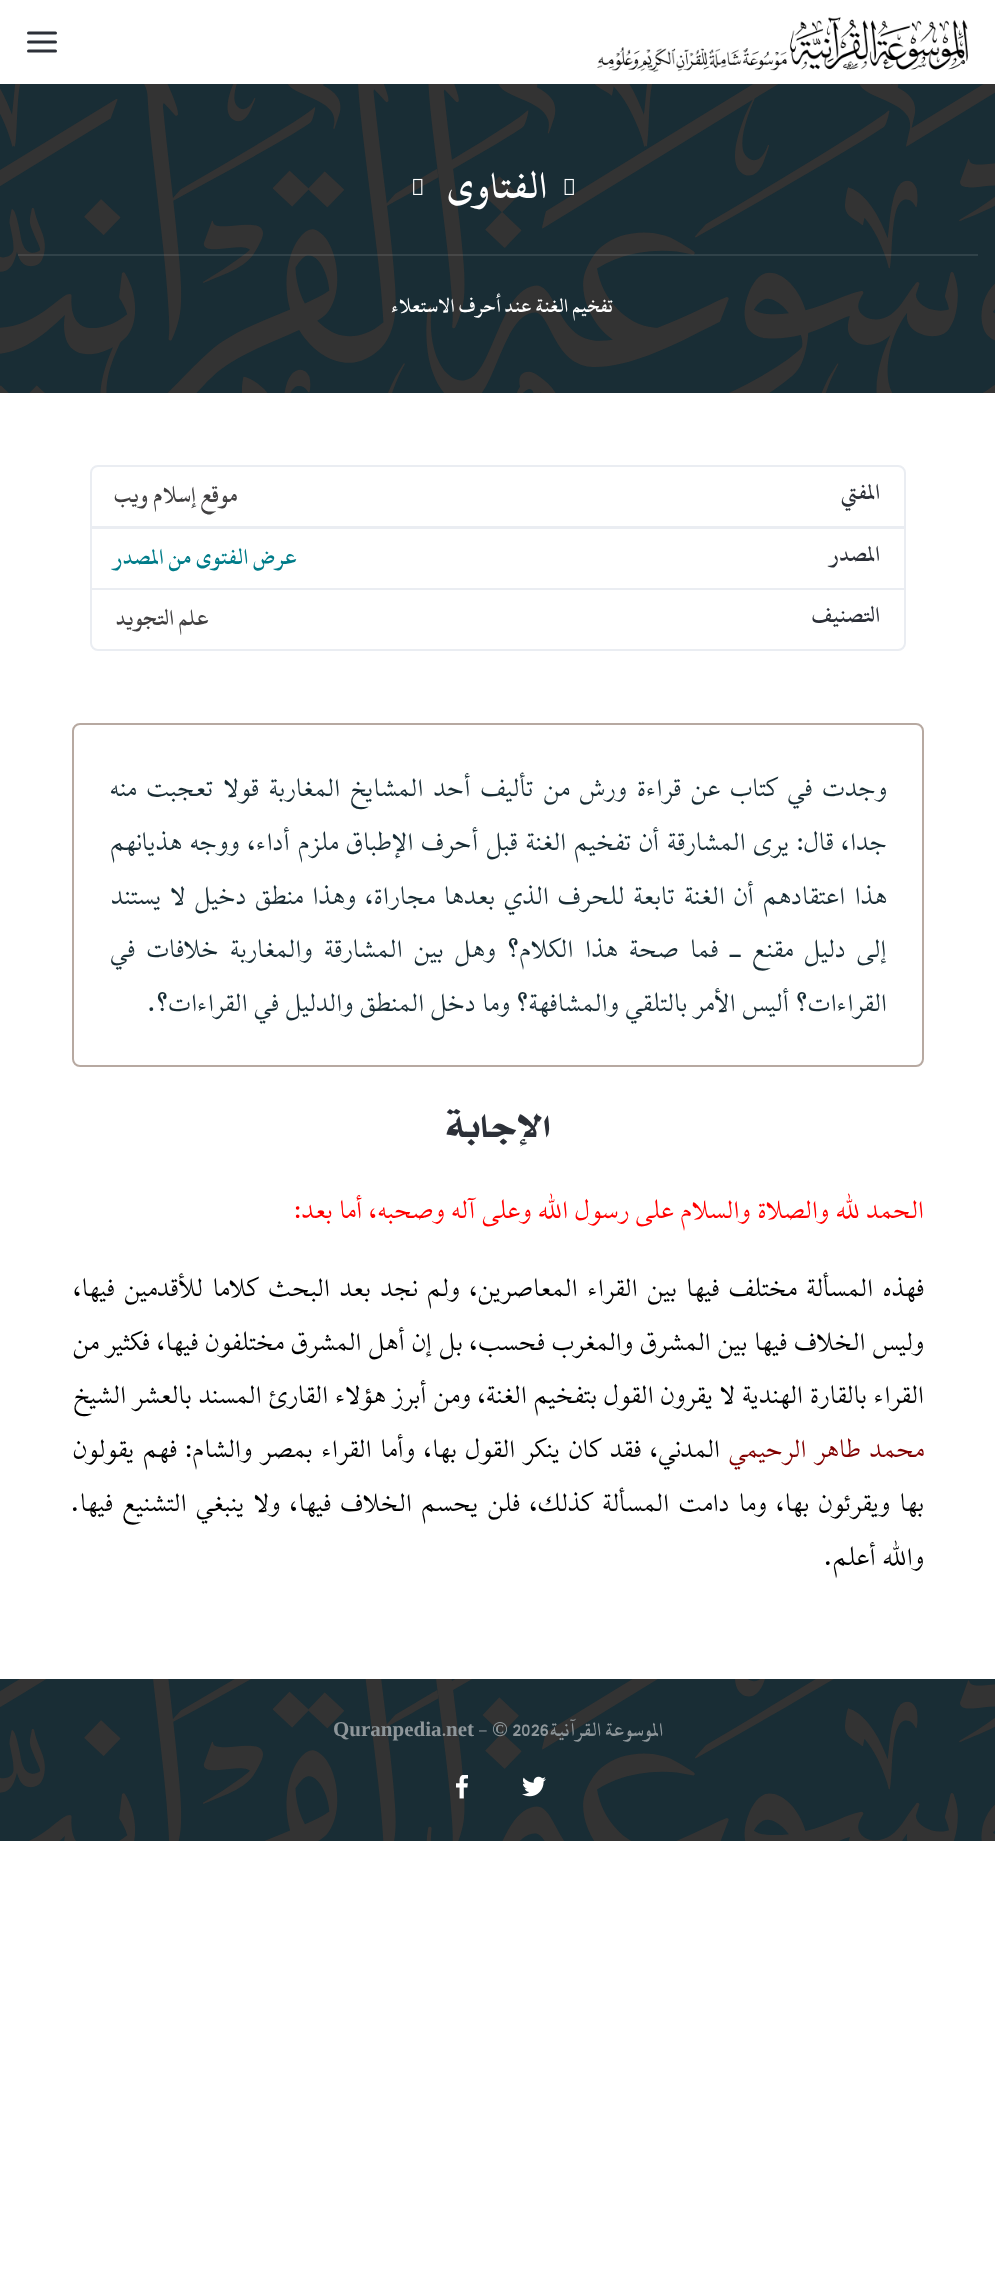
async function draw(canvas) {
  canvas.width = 995
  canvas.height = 2283
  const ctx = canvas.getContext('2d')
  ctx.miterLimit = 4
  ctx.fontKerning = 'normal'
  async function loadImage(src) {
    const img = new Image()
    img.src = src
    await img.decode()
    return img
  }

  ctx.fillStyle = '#fff'
  ctx.fillRect(0, 0, 995, 2283)
  ctx.drawImage(await loadImage('image0.png'), 597, 17, 371, 55)
  ctx.beginPath()
  ctx.moveTo(28.5, 42)
  ctx.lineTo(55.5, 42)
  ctx.moveTo(28.5, 33)
  ctx.lineTo(55.5, 33)
  ctx.moveTo(28.5, 51)
  ctx.lineTo(55.5, 51)
  ctx.strokeStyle = '#2c3038'
  ctx.lineWidth = 3
  ctx.lineCap = 'round'
  ctx.lineJoin = 'round'
  ctx.stroke()
  ctx.fillStyle = '#192d35'
  ctx.fillRect(0, 84, 995, 309)
  ctx.drawImage(await loadImage('image1.png'), 0, 84, 995, 309)
  ctx.drawImage(await loadImage('image2.png'), 564, 178, 10, 17)
  ctx.direction = 'rtl'
  ctx.font = 'bold 41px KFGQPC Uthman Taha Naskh'
  ctx.fillStyle = '#fff'
  ctx.fillText('الفتاوى', 547, 198)
  ctx.drawImage(await loadImage('image3.png'), 413, 178, 10, 17)
  ctx.fillStyle = '#ffffff1a'
  ctx.fillRect(18, 254, 960, 2)
  ctx.font = 'bold 21px KFGQPC Uthman Taha Naskh'
  ctx.fillStyle = '#fff'
  ctx.fillText('تفخيم الغنة عند أحرف الاستعلاء', 613, 312)
  ctx.beginPath()
  ctx.roundRect(91, 466, 814, 61, [7, 7, 0, 0])
  ctx.strokeStyle = '#eaedf2'
  ctx.lineWidth = 2
  ctx.lineJoin = 'miter'
  ctx.stroke()
  ctx.font = 'bold 24px KFGQPC Uthman Taha Naskh'
  ctx.fillStyle = '#2c3038'
  ctx.fillText('المفتي', 880, 499)
  ctx.fillStyle = '#424142'
  ctx.fillText('موقع إسلام ويب', 238, 502)
  ctx.strokeRect(91, 528, 814, 61)
  ctx.fillStyle = '#2c3038'
  ctx.fillText('المصدر', 880, 561)
  ctx.fillStyle = '#007c89'
  ctx.fillText('عرض الفتوى من المصدر', 297, 564)
  ctx.fillStyle = '#fff'
  ctx.beginPath()
  ctx.roundRect(91, 589, 814, 61, [0, 0, 7, 7])
  ctx.fill()
  ctx.stroke()
  ctx.fillStyle = '#2c3038'
  ctx.fillText('التصنيف', 880, 622)
  ctx.fillStyle = '#424142'
  ctx.fillText('علم التجويد', 209, 625)
  ctx.beginPath()
  ctx.roundRect(73, 724, 850, 342, 7)
  ctx.strokeStyle = '#b7a9a1'
  ctx.stroke()
  ctx.wordSpacing = '3.4px'
  ctx.font = '33.6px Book'
  ctx.fillStyle = '#192d35'
  ctx.fillText('وجدت في كتاب عن قراءة ورش من تأليف أحد المشايخ المغاربة قولا تعجبت منه', 887, 796)
  ctx.wordSpacing = '1.25px'
  ctx.fillText('جدا، قال: يرى المشارقة أن تفخيم الغنة قبل أحرف الإطباق ملزم أداء، ووجه هذيانهم', 887, 850)
  ctx.wordSpacing = '2.5px'
  ctx.fillText('هذا اعتقادهم أن الغنة تابعة للحرف الذي بعدها مجاراة، وهذا منطق دخيل لا يستند', 887, 904)
  ctx.wordSpacing = '4.9px'
  ctx.fillText('إلى دليل مقنع ـ فما صحة هذا الكلام؟ وهل بين المشارقة والمغاربة خلافات في', 887, 957)
  ctx.wordSpacing = '0px'
  ctx.fillText('القراءات؟ أليس الأمر بالتلقي والمشافهة؟ وما دخل المنطق والدليل في القراءات؟.', 887, 1011)
  ctx.font = '500 37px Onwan'
  ctx.fillStyle = '#2c3038'
  ctx.fillText('الإجابة', 551, 1137)
  ctx.font = '33.6px Book'
  ctx.fillStyle = '#f00'
  ctx.fillText('الحمد لله والصلاة والسلام على رسول الله وعلى آله وصحبه، أما بعد:', 924, 1218)
  ctx.wordSpacing = '3.1px'
  ctx.fillStyle = '#000'
  ctx.fillText('فهذه المسألة مختلف فيها بين القراء المعاصرين، ولم نجد بعد البحث كلاما للأقدمين فيها،', 924, 1296)
  ctx.wordSpacing = '0.5px'
  ctx.fillText('وليس الخلاف فيها بين المشرق والمغرب فحسب، بل إن أهل المشرق مختلفون فيها، فكثير من', 924, 1350)
  ctx.wordSpacing = '0.3px'
  ctx.fillText('القراء بالقارة الهندية لا يقرون القول بتفخيم الغنة، ومن أبرز هؤلاء القارئ المسند بالعشر الشيخ', 924, 1403)
  ctx.wordSpacing = '2.1px'
  ctx.fillStyle = '#800000'
  ctx.fillText('محمد طاهر الرحيمي', 924, 1457)
  ctx.fillStyle = '#000'
  ctx.fillText('المدني، فقد كان ينكر القول بها، وأما القراء بمصر والشام: فهم يقولون', 720, 1457)
  ctx.wordSpacing = '2.9px'
  ctx.fillText('بها ويقرئون بها، وما دامت المسألة كذلك، فلن يحسم الخلاف فيها، ولا ينبغي التشنيع فيها.', 924, 1511)
  ctx.wordSpacing = '0px'
  ctx.fillText('والله أعلم.', 924, 1565)
  ctx.fillStyle = '#192d35'
  ctx.fillRect(0, 1679, 995, 162)
  ctx.drawImage(await loadImage('image4.png'), 0, 1679, 995, 162)
  ctx.font = 'bold 21px KFGQPC Uthman Taha Naskh'
  ctx.fillStyle = '#8e969a'
  ctx.fillText('الموسوعة القرآنية', 663, 1736)
  ctx.direction = 'ltr'
  ctx.fillText('2026', 512, 1736)
  ctx.font = 'bold 21px Liberation Serif'
  ctx.fillText('©', 492, 1736)
  ctx.font = 'bold 21px KFGQPC Uthman Taha Naskh'
  ctx.fillText('-', 478, 1736)
  ctx.font = 'bold 21px Liberation Serif'
  ctx.fillText('net', 446, 1736)
  ctx.fillText('Quranpedia', 333, 1736)
  ctx.font = 'bold 21px KFGQPC Uthman Taha Naskh'
  ctx.fillStyle = '#959899'
  ctx.fillText('.', 442, 1736)
  ctx.drawImage(await loadImage('image5.png'), 522, 1776, 24, 21)
  ctx.drawImage(await loadImage('image6.png'), 456, 1775, 12, 24)
}

draw(document.querySelector('canvas'))
